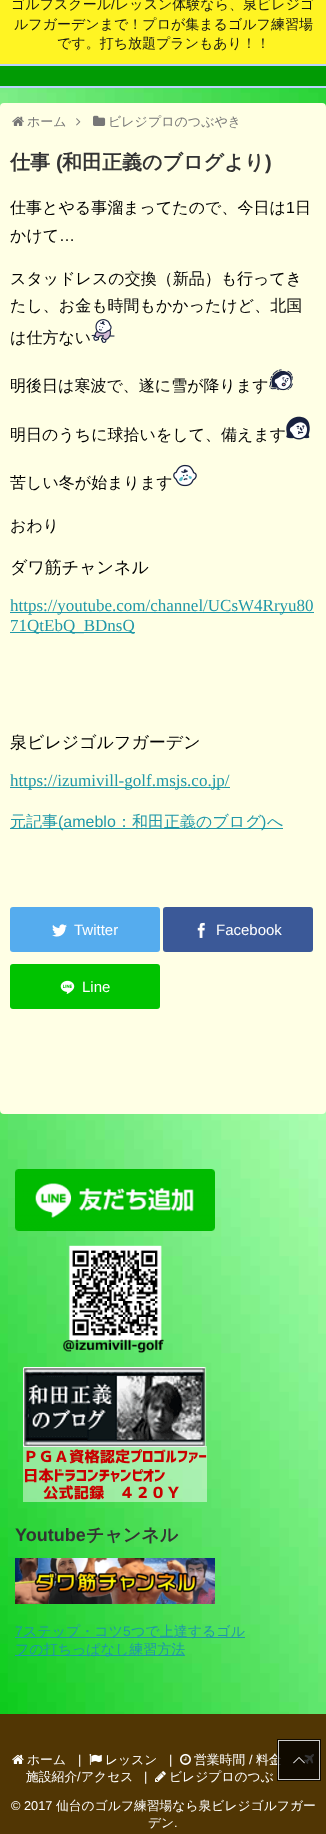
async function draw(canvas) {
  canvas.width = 326
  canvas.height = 1834
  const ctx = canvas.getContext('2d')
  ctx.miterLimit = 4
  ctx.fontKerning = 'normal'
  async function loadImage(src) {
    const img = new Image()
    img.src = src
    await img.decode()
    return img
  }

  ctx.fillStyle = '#fff'
  ctx.fillRect(0, 0, 326, 1834)
  ctx.drawImage(await loadImage('image0.png'), 0, 88, 326, 1626)
  ctx.fillStyle = '#fff423'
  ctx.fillRect(0, 0, 326, 64)
  ctx.font = '500 14px WenQuanYi Zen Hei'
  ctx.fillStyle = '#161616'
  ctx.fillText('ゴルフスクール', 11, 9)
  ctx.font = '14px Liberation Sans'
  ctx.fillText('/', 111, 9)
  ctx.font = '500 14px WenQuanYi Zen Hei'
  ctx.fillText('レッスン体験なら、泉ビレジゴ', 115, 9)
  ctx.fillText('ルフガーデンまで！プロが集まるゴルフ練習場', 14, 29)
  ctx.fillText('です。打ち放題プランもあり！！', 57, 48)
  ctx.fillStyle = '#019b04'
  ctx.fillRect(0, 66, 326, 20)
  ctx.fillStyle = '#bad3ff'
  ctx.fillRect(0, 64, 326, 2)
  ctx.fillRect(0, 86, 326, 2)
  ctx.fillStyle = '#ffffe5'
  ctx.beginPath()
  ctx.roundRect(0, 103, 326, 1011, 4)
  ctx.fill()
  ctx.drawImage(await loadImage('image1.png'), 12, 116, 12, 10)
  ctx.font = '500 13px WenQuanYi Zen Hei'
  ctx.fillStyle = '#777'
  ctx.fillText('ホーム', 27, 126)
  ctx.drawImage(await loadImage('image2.png'), 76, 118, 5, 8)
  ctx.drawImage(await loadImage('image3.png'), 93, 115, 13, 11)
  ctx.fillText('ビレジプロのつぶやき', 108, 126)
  ctx.font = 'bold 20px WenQuanYi Zen Hei'
  ctx.fillStyle = '#333'
  ctx.fillText('仕事', 10, 169)
  ctx.font = 'bold 20px Liberation Sans'
  ctx.fillText('(', 56, 169)
  ctx.font = 'bold 20px WenQuanYi Zen Hei'
  ctx.fillText('和田正義のブログより', 62, 169)
  ctx.font = 'bold 20px Liberation Sans'
  ctx.fillText(')', 265, 169)
  ctx.font = '500 16px WenQuanYi Zen Hei'
  ctx.fillStyle = '#000'
  ctx.fillText('仕事とやる事溜まってたので、今日は', 10, 213)
  ctx.font = '16px Liberation Sans'
  ctx.fillText('1', 286, 213)
  ctx.font = '500 16px WenQuanYi Zen Hei'
  ctx.fillText('日', 295, 213)
  ctx.fillText('かけて', 10, 241)
  ctx.font = '16px Liberation Sans'
  ctx.fillText('…', 59, 241)
  ctx.font = '500 16px WenQuanYi Zen Hei'
  ctx.fillText('スタッドレスの交換（新品）も行ってき', 10, 284)
  ctx.fillText('たし、お金も時間もかかったけど、北国', 10, 311)
  ctx.fillText('は仕方ない', 10, 343)
  ctx.drawImage(await loadImage('image4.png'), 91, 319, 24, 24)
  ctx.fillText('明後日は寒波で、遂に雪が降ります', 10, 391)
  ctx.drawImage(await loadImage('image5.png'), 269, 369, 24, 22)
  ctx.fillText('明日のうちに球拾いをして、備えます', 10, 440)
  ctx.drawImage(await loadImage('image6.png'), 286, 416, 24, 24)
  ctx.fillText('苦しい冬が始まります', 10, 488)
  ctx.drawImage(await loadImage('image7.png'), 173, 464, 24, 23)
  ctx.fillText('おわり', 10, 531)
  ctx.font = '500 17px WenQuanYi Zen Hei'
  ctx.fillText('ダワ筋チャンネル', 10, 573)
  ctx.fillStyle = '#2098a8'
  ctx.fillRect(10, 612, 304, 1)
  ctx.font = '17px Liberation Serif'
  ctx.fillText('https://youtube.com/channel/UCsW4Rryu80', 10, 611)
  ctx.fillRect(10, 632, 125, 1)
  ctx.fillText('71QtEbQ_BDnsQ', 10, 631)
  ctx.font = '500 17px WenQuanYi Zen Hei'
  ctx.fillStyle = '#000'
  ctx.fillText('泉ビレジゴルフガーデン', 10, 748)
  ctx.fillStyle = '#2098a8'
  ctx.fillRect(10, 787, 220, 1)
  ctx.font = '17px Liberation Serif'
  ctx.fillText('https://izumivill-golf.msjs.co.jp/', 10, 786)
  ctx.fillRect(10, 828, 273, 1)
  ctx.font = '500 16px WenQuanYi Zen Hei'
  ctx.fillText('元記事', 10, 827)
  ctx.font = '16px Liberation Sans'
  ctx.fillText('(ameblo', 58, 827)
  ctx.font = '500 16px WenQuanYi Zen Hei'
  ctx.fillText('：和田正義のブログ', 116, 827)
  ctx.font = '16px Liberation Sans'
  ctx.fillText(')', 261, 827)
  ctx.font = '500 16px WenQuanYi Zen Hei'
  ctx.fillText('へ', 267, 827)
  ctx.fillStyle = '#55acee'
  ctx.beginPath()
  ctx.roundRect(10, 907, 150, 45, 3)
  ctx.fill()
  ctx.drawImage(await loadImage('image8.png'), 52, 924, 15, 13)
  ctx.font = '15px Liberation Sans'
  ctx.fillStyle = '#fff'
  ctx.fillText('Twitter', 74, 935)
  ctx.fillStyle = '#3b5998'
  ctx.beginPath()
  ctx.roundRect(163, 907, 150, 45, 3)
  ctx.fill()
  ctx.drawImage(await loadImage('image9.png'), 197, 922, 8, 16)
  ctx.fillStyle = '#fff'
  ctx.fillText('Facebook', 216, 935)
  ctx.fillStyle = '#00c300'
  ctx.beginPath()
  ctx.roundRect(10, 964, 150, 45, 3)
  ctx.fill()
  ctx.drawImage(await loadImage('image10.png'), 60, 980, 15, 14)
  ctx.fillStyle = '#fff'
  ctx.fillText('Line', 82, 992)
  ctx.drawImage(await loadImage('image11.png'), 15, 1169, 200, 62)
  ctx.drawImage(await loadImage('image12.png'), 63, 1245, 101, 108)
  ctx.drawImage(await loadImage('image13.png'), 23, 1367, 184, 135)
  ctx.font = 'bold 18px Liberation Sans'
  ctx.fillStyle = '#333'
  ctx.fillText('Youtube', 15, 1541)
  ctx.font = 'bold 18px WenQuanYi Zen Hei'
  ctx.fillText('チャンネル', 86, 1541)
  ctx.drawImage(await loadImage('image14.png'), 15, 1558, 200, 46)
  ctx.font = '14px Liberation Sans'
  ctx.fillStyle = '#2098a8'
  ctx.fillText('7', 15, 1636)
  ctx.fillRect(15, 1637, 230, 1)
  ctx.font = '500 14px WenQuanYi Zen Hei'
  ctx.fillText('ステップ・コツ', 23, 1636)
  ctx.font = '14px Liberation Sans'
  ctx.fillText('5', 123, 1636)
  ctx.font = '500 14px WenQuanYi Zen Hei'
  ctx.fillText('つで上達するゴル', 131, 1636)
  ctx.fillRect(15, 1655, 170, 1)
  ctx.fillText('フの打ちっぱなし練習方法', 15, 1654)
  ctx.fillStyle = '#513604'
  ctx.fillRect(0, 1714, 326, 120)
  ctx.drawImage(await loadImage('image15.png'), 12, 1754, 12, 10)
  ctx.font = '500 12.8px WenQuanYi Zen Hei'
  ctx.fillStyle = '#fff'
  ctx.fillText('ホーム', 27, 1764)
  ctx.font = '12.8px Liberation Sans'
  ctx.fillText('|', 78, 1764)
  ctx.drawImage(await loadImage('image16.png'), 89, 1754, 13, 11)
  ctx.font = '500 12.8px WenQuanYi Zen Hei'
  ctx.fillText('レッスン', 105, 1764)
  ctx.font = '12.8px Liberation Sans'
  ctx.fillText('|', 169, 1764)
  ctx.drawImage(await loadImage('image17.png'), 180, 1753, 11, 12)
  ctx.font = '500 12.8px WenQuanYi Zen Hei'
  ctx.fillText('営業時間', 194, 1764)
  ctx.font = '12.8px Liberation Sans'
  ctx.fillText('/', 249, 1764)
  ctx.font = '500 12.8px WenQuanYi Zen Hei'
  ctx.fillText('料金', 256, 1764)
  ctx.drawImage(await loadImage('image18.png'), 304, 1754, 10, 10)
  ctx.fillText('施設紹介 アクセス', 26, 1781)
  ctx.font = '12.8px Liberation Sans'
  ctx.fillText('/', 77, 1781)
  ctx.fillText('|', 144, 1781)
  ctx.drawImage(await loadImage('image19.png'), 155, 1771, 11, 11)
  ctx.font = '500 12.8px WenQuanYi Zen Hei'
  ctx.fillText('ビレジプロのつぶ', 169, 1781)
  ctx.font = '12.8px Liberation Sans'
  ctx.fillText('© 2017', 11, 1810)
  ctx.font = '500 12.8px WenQuanYi Zen Hei'
  ctx.fillText('仙台のゴルフ練習場なら泉ビレジゴルフガー', 56, 1810)
  ctx.fillText('デン', 148, 1827)
  ctx.font = '12.8px Liberation Sans'
  ctx.fillText('.', 174, 1827)
  ctx.strokeStyle = '#000000cc'
  ctx.lineWidth = 2
  ctx.strokeRect(278, 1740, 42, 40)
  ctx.strokeStyle = '#ffffffcc'
  ctx.lineWidth = 1
  ctx.strokeRect(278.5, 1740.5, 41, 39)
  ctx.fillStyle = '#000000cc'
  ctx.fillRect(279, 1741, 40, 38)
  ctx.drawImage(await loadImage('image20.png'), 293, 1757, 12, 7)
}

draw(document.querySelector('canvas'))
